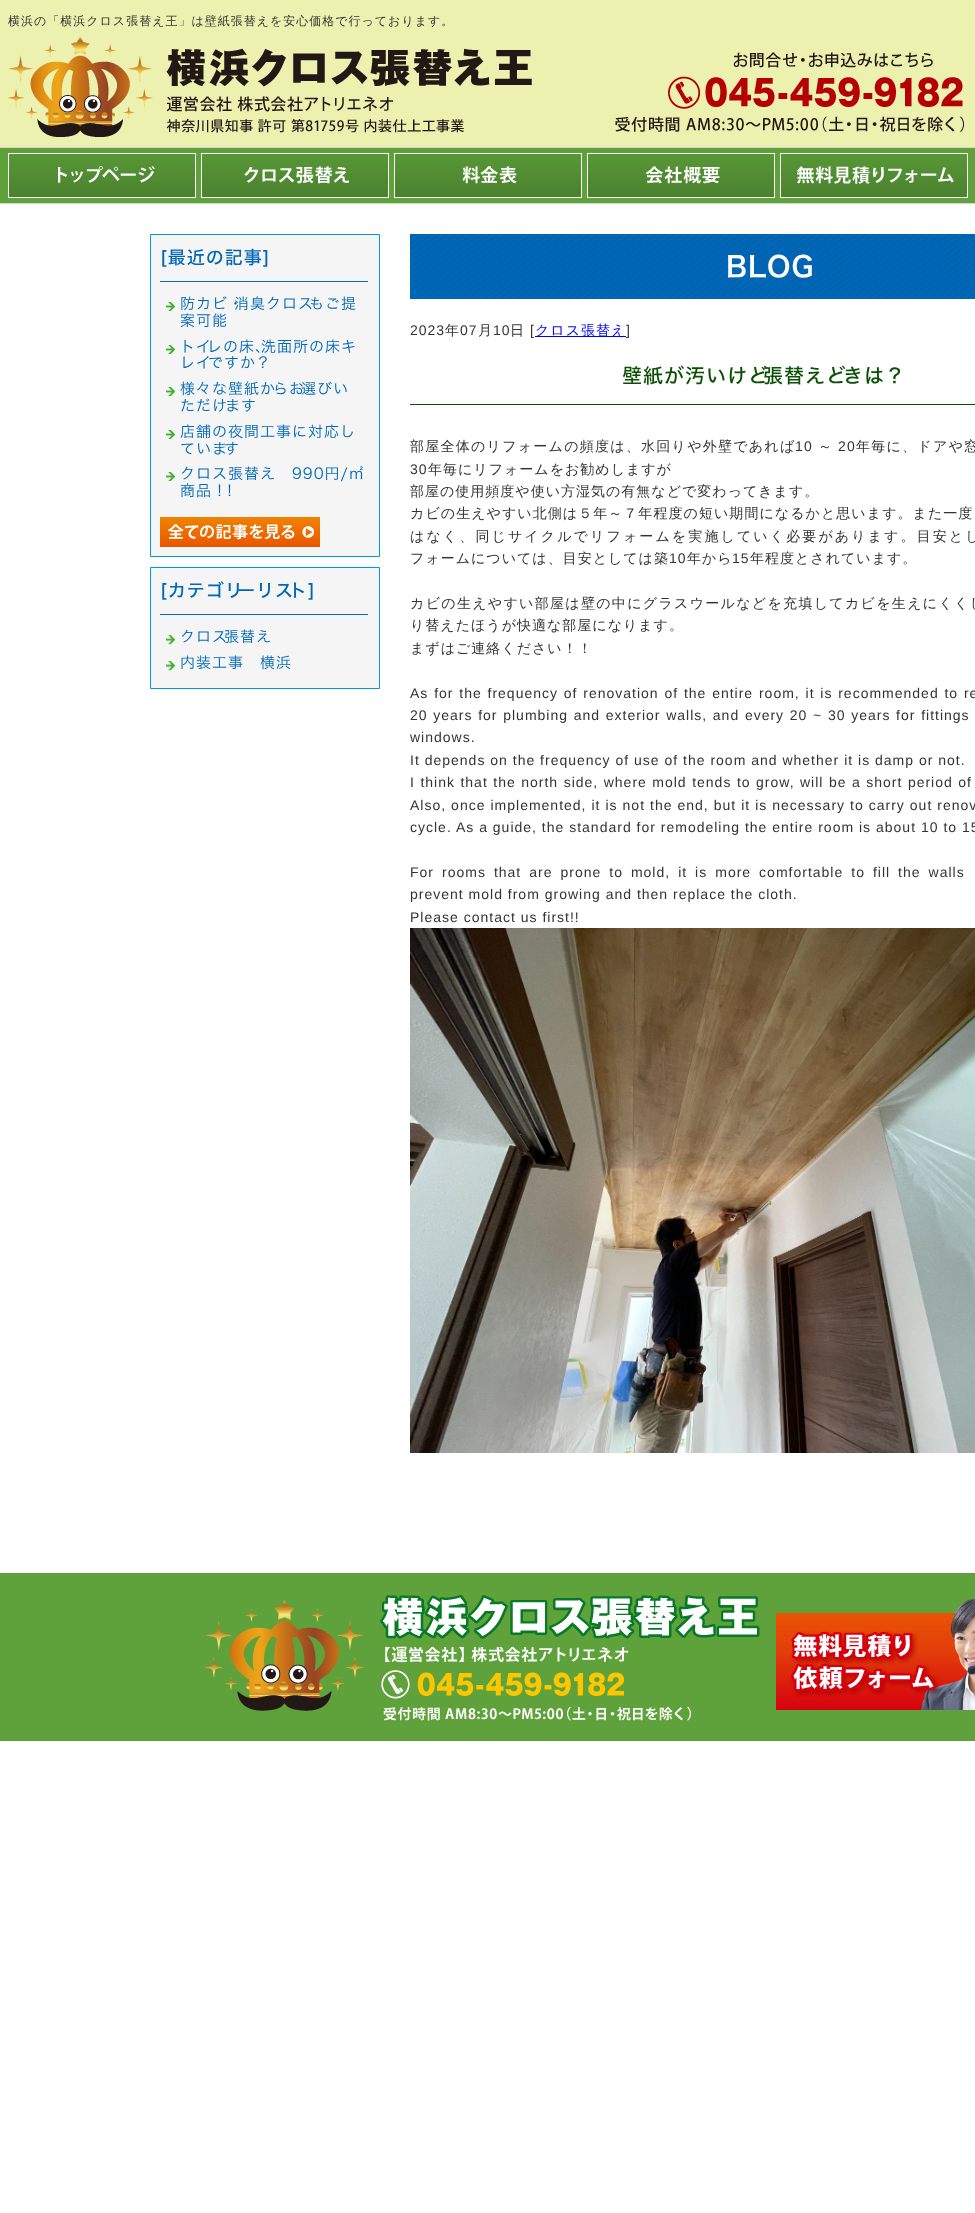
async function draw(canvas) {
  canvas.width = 975
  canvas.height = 2213
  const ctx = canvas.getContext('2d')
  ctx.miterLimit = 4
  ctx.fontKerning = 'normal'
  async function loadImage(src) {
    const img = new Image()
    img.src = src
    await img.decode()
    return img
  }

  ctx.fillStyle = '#fff'
  ctx.fillRect(0, 0, 975, 2213)
  ctx.fillStyle = '#ecf1af'
  ctx.fillRect(0, 0, 975, 147)
  ctx.letterSpacing = '1px'
  ctx.font = '500 12px WenQuanYi Zen Hei'
  ctx.fillStyle = '#333'
  ctx.fillText('横浜の「横浜クロス張替え王」は壁紙張替えを安心価格で行っております。', 8, 25)
  ctx.drawImage(await loadImage('image0.png'), 8, 37, 956, 100)
  ctx.fillStyle = '#5fa23b'
  ctx.fillRect(0, 148, 975, 55)
  ctx.fillStyle = '#d3d3d4'
  ctx.fillRect(0, 147, 975, 1)
  ctx.fillRect(0, 203, 975, 1)
  ctx.drawImage(await loadImage('image1.png'), 8, 153, 188, 45)
  ctx.drawImage(await loadImage('image2.png'), 201, 153, 188, 45)
  ctx.drawImage(await loadImage('image3.png'), 394, 153, 188, 45)
  ctx.drawImage(await loadImage('image4.png'), 587, 153, 188, 45)
  ctx.drawImage(await loadImage('image5.png'), 780, 153, 188, 45)
  ctx.fillStyle = '#f5f5f5'
  ctx.beginPath()
  ctx.rect(150.5, 234.5, 229, 322)
  ctx.fill()
  ctx.strokeStyle = '#0099d9'
  ctx.stroke()
  ctx.font = '500 18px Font'
  ctx.fillStyle = '#0068b6'
  ctx.fillText('[最近の記事]', 160, 264)
  ctx.fillRect(160, 281, 208, 1)
  ctx.drawImage(await loadImage('image6.png'), 166, 302, 9, 9)
  ctx.font = '300 15px Font'
  ctx.fillText('防カビ・', 180, 309)
  ctx.fillText('消臭クロス', 234, 309)
  ctx.fillText('もご提', 309, 309)
  ctx.fillText('案可能', 180, 326)
  ctx.drawImage(await loadImage('image6.png'), 166, 345, 9, 9)
  ctx.fillText('トイ', 180, 352)
  ctx.fillText('レの床、', 207, 352)
  ctx.fillText('洗面所の床キ', 261, 352)
  ctx.fillText('レイ', 180, 368)
  ctx.fillText('ですか？', 208, 368)
  ctx.drawImage(await loadImage('image6.png'), 166, 387, 9, 9)
  ctx.fillText('様々な壁紙か', 180, 394)
  ctx.fillText('らお', 273, 394)
  ctx.fillText('選びい', 301, 394)
  ctx.fillText('ただけ', 180, 411)
  ctx.fillText('ます', 225, 411)
  ctx.drawImage(await loadImage('image6.png'), 166, 430, 9, 9)
  ctx.fillText('店舗の夜間工事に対応し', 180, 437)
  ctx.fillText('ていま', 180, 454)
  ctx.fillText('す', 224, 454)
  ctx.drawImage(await loadImage('image6.png'), 166, 472, 9, 9)
  ctx.font = '300 15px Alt'
  ctx.fillText('クロス張替え　990円/㎡', 180, 479)
  ctx.font = '300 15px Font'
  ctx.fillText('商品！', 180, 496)
  ctx.fillText('！', 222, 496)
  ctx.drawImage(await loadImage('image7.png'), 160, 517, 160, 30)
  ctx.fillStyle = '#f5f5f5'
  ctx.beginPath()
  ctx.rect(150.5, 567.5, 229, 121)
  ctx.fill()
  ctx.stroke()
  ctx.font = '500 18px Font'
  ctx.fillStyle = '#0068b6'
  ctx.fillText('[カテゴリ', 160, 597)
  ctx.fillText('ーリス', 237, 597)
  ctx.fillText('ト]', 289, 597)
  ctx.fillRect(160, 614, 208, 1)
  ctx.drawImage(await loadImage('image8.png'), 166, 635, 9, 10)
  ctx.font = '300 15px Font'
  ctx.fillText('クロス', 180, 642)
  ctx.fillText('張替え', 224, 642)
  ctx.drawImage(await loadImage('image8.png'), 166, 661, 9, 10)
  ctx.fillText('内装工事　横浜', 180, 668)
  ctx.drawImage(await loadImage('image9.png'), 410, 234, 565, 65)
  ctx.font = '600 28px Font'
  ctx.fillStyle = '#fff'
  ctx.fillText('BLOG', 726, 277)
  ctx.font = '14px Liberation Sans'
  ctx.fillStyle = '#333'
  ctx.fillText('2023', 410, 335)
  ctx.font = '500 14px WenQuanYi Zen Hei'
  ctx.fillText('年', 445, 335)
  ctx.font = '14px Liberation Sans'
  ctx.fillText('07', 460, 335)
  ctx.font = '500 14px WenQuanYi Zen Hei'
  ctx.fillText('月', 478, 335)
  ctx.font = '14px Liberation Sans'
  ctx.fillText('10', 493, 335)
  ctx.font = '500 14px WenQuanYi Zen Hei'
  ctx.fillText('日', 510, 335)
  ctx.font = '14px Liberation Sans'
  ctx.fillText('[', 530, 335)
  ctx.fillStyle = '#00f'
  ctx.fillRect(535, 336, 91, 1)
  ctx.font = '500 14px WenQuanYi Zen Hei'
  ctx.fillText('クロス張替え', 535, 335)
  ctx.font = '14px Liberation Sans'
  ctx.fillStyle = '#333'
  ctx.fillText(']', 626, 335)
  ctx.fillStyle = '#0b5005'
  ctx.fillRect(410, 404, 565, 1)
  ctx.font = '500 20px Font'
  ctx.fillText('壁紙が汚いけど', 622, 383)
  ctx.fillText('張替えど', 763, 383)
  ctx.fillText('きは？', 843, 383)
  ctx.letterSpacing = '1.25px'
  ctx.font = '500 14px WenQuanYi Zen Hei'
  ctx.fillStyle = '#333'
  ctx.fillText('部屋全体のリフォームの頻度は、水回りや外壁であれば', 410, 451)
  ctx.font = '14px Liberation Sans'
  ctx.fillText('10', 795, 451)
  ctx.font = '500 14px WenQuanYi Zen Hei'
  ctx.fillText('～', 818, 451)
  ctx.font = '14px Liberation Sans'
  ctx.fillText('20', 838, 451)
  ctx.font = '500 14px WenQuanYi Zen Hei'
  ctx.fillText('年毎に、ドアや窓', 856, 451)
  ctx.letterSpacing = '1px'
  ctx.font = '14px Liberation Sans'
  ctx.fillText('30', 410, 474)
  ctx.font = '500 14px WenQuanYi Zen Hei'
  ctx.fillText('年毎にリフォームをお勧めしますが', 428, 474)
  ctx.fillText('部屋の使用頻度や使い方湿気の有無などで変わってきます。', 410, 496)
  ctx.letterSpacing = '1.05px'
  ctx.fillText('カビの生えやすい北側は５年～７年程度の短い期間になるかと思います。また一度', 410, 518)
  ctx.letterSpacing = '2.1px'
  ctx.fillText('はなく、同じサイクルでリフォームを実施していく必要があります。目安とし', 410, 541)
  ctx.letterSpacing = '1px'
  ctx.fillText('フォームについては、目安としては築', 410, 563)
  ctx.font = '14px Liberation Sans'
  ctx.fillText('10', 669, 563)
  ctx.font = '500 14px WenQuanYi Zen Hei'
  ctx.fillText('年から', 687, 563)
  ctx.font = '14px Liberation Sans'
  ctx.fillText('15', 732, 563)
  ctx.font = '500 14px WenQuanYi Zen Hei'
  ctx.fillText('年程度とされています。', 750, 563)
  ctx.letterSpacing = '1.3px'
  ctx.fillText('カビの生えやすい部屋は壁の中にグラスウールなどを充填してカビを生えにくくし', 410, 608)
  ctx.letterSpacing = '1px'
  ctx.fillText('り替えたほうが快適な部屋になります。', 410, 630)
  ctx.fillText('まずはご連絡ください！！', 410, 653)
  ctx.wordSpacing = '0.9px'
  ctx.font = '14px Liberation Sans'
  ctx.fillText('As for the frequency of renovation of the entire room, it is recommended to re', 410, 698)
  ctx.wordSpacing = '0.8px'
  ctx.fillText('20 years for plumbing and exterior walls, and every 20 ~ 30 years for fittings', 410, 720)
  ctx.wordSpacing = '0px'
  ctx.fillText('windows.', 410, 742)
  ctx.fillText('It depends on the frequency of use of the room and whether it is damp or not.', 410, 765)
  ctx.wordSpacing = '0.6px'
  ctx.fillText('I think that the north side, where mold tends to grow, will be a short period of', 410, 787)
  ctx.wordSpacing = '0.1px'
  ctx.fillText('Also, once implemented, it is not the end, but it is necessary to carry out renov', 410, 810)
  ctx.wordSpacing = '0px'
  ctx.fillText('cycle. As a guide, the standard for remodeling the entire room is about 10 to 15', 410, 832)
  ctx.wordSpacing = '3.1px'
  ctx.fillText('For rooms that are prone to mold, it is more comfortable to fill the walls', 410, 877)
  ctx.wordSpacing = '0px'
  ctx.fillText('prevent mold from growing and then replace the cloth.', 410, 899)
  ctx.fillText('Please contact us first!!', 410, 922)
  ctx.drawImage(await loadImage('image10.png'), 410, 928, 565, 525)
  ctx.fillStyle = '#5fa23b'
  ctx.fillRect(0, 1573, 975, 168)
  ctx.drawImage(await loadImage('image11.png'), 205, 1595, 555, 126)
  ctx.drawImage(await loadImage('image12.png'), 776, 1598, 199, 112)
}

draw(document.querySelector('canvas'))
